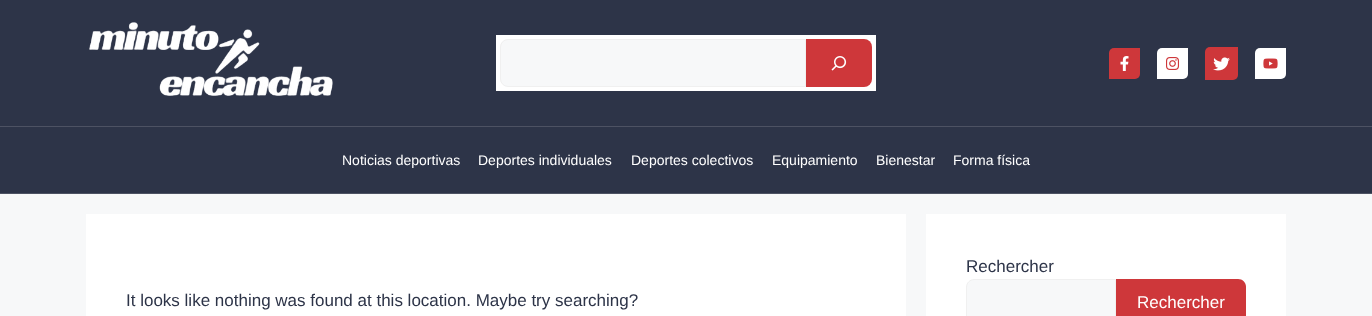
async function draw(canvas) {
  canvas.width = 1372
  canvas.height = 316
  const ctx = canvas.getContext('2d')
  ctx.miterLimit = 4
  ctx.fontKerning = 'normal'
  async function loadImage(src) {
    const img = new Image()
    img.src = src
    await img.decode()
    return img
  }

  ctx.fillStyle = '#f7f8f9'
  ctx.fillRect(0, 0, 1372, 316)
  ctx.fillStyle = '#2d3448'
  ctx.fillRect(0, 0, 1372, 193)
  ctx.drawImage(await loadImage('image0.png'), 89, 22, 244, 74)
  ctx.fillStyle = '#fff'
  ctx.fillRect(496, 35, 380, 56)
  ctx.fillStyle = '#f7f8f9'
  ctx.beginPath()
  ctx.roundRect(500.5, 39.5, 305, 47, [7.5, 0, 0, 7.5])
  ctx.fill()
  ctx.strokeStyle = '#f0f0f0'
  ctx.stroke()
  ctx.fillStyle = '#ce373a'
  ctx.beginPath()
  ctx.roundRect(806, 39, 66, 48, [0, 8, 8, 0])
  ctx.fill()
  ctx.drawImage(await loadImage('image1.png'), 831, 56, 16, 15)
  ctx.beginPath()
  ctx.roundRect(1109, 48, 31, 31, [5, 0, 5, 0])
  ctx.fill()
  ctx.drawImage(await loadImage('image2.png'), 1120, 56, 9, 15)
  ctx.fillStyle = '#fff'
  ctx.beginPath()
  ctx.roundRect(1157, 48, 31, 31, [5, 0, 5, 0])
  ctx.fill()
  ctx.drawImage(await loadImage('image3.png'), 1166, 57, 14, 13)
  ctx.fillStyle = '#ce373a'
  ctx.beginPath()
  ctx.roundRect(1205, 47, 33, 33, [5, 0, 5, 0])
  ctx.fill()
  ctx.drawImage(await loadImage('image4.png'), 1213, 57, 17, 14)
  ctx.fillStyle = '#fff'
  ctx.beginPath()
  ctx.roundRect(1255, 48, 31, 31, [5, 0, 5, 0])
  ctx.fill()
  ctx.drawImage(await loadImage('image5.png'), 1263, 58, 15, 11)
  ctx.fillStyle = '#4d5263'
  ctx.fillRect(0, 126, 1372, 1)
  ctx.fillRect(0, 193, 1372, 1)
  ctx.font = '14px Liberation Sans'
  ctx.fillStyle = '#fff'
  ctx.fillText('Noticias deportivas', 342, 165)
  ctx.fillText('Deportes individuales', 478, 165)
  ctx.fillText('Deportes colectivos', 631, 165)
  ctx.fillText('Equipamiento', 772, 165)
  ctx.fillText('Bienestar', 876, 165)
  ctx.fillText('Forma física', 953, 165)
  ctx.fillRect(86, 214, 820, 102)
  ctx.font = '17px Liberation Sans'
  ctx.fillStyle = '#2d3448'
  ctx.fillText('It looks like nothing was found at this location. Maybe try searching?', 126, 306)
  ctx.fillStyle = '#fff'
  ctx.fillRect(926, 214, 360, 102)
  ctx.fillStyle = '#2d3448'
  ctx.fillText('Rechercher', 966, 272)
  ctx.fillStyle = '#f7f8f9'
  ctx.beginPath()
  ctx.moveTo(974, 279.5)
  ctx.lineTo(1115.5, 279.5)
  ctx.lineTo(1115.5, 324.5)
  ctx.lineTo(974, 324.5)
  ctx.bezierCurveTo(970, 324.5, 966.5, 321, 966.5, 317)
  ctx.lineTo(966.5, 287)
  ctx.bezierCurveTo(966.5, 283, 970, 279.5, 974, 279.5)
  ctx.closePath()
  ctx.fill()
  ctx.stroke()
  ctx.fillStyle = '#ce373a'
  ctx.beginPath()
  ctx.moveTo(1116, 279)
  ctx.lineTo(1238, 279)
  ctx.bezierCurveTo(1242.5, 279, 1246, 282.5, 1246, 287)
  ctx.lineTo(1246, 316)
  ctx.bezierCurveTo(1246, 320.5, 1242.5, 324, 1238, 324)
  ctx.lineTo(1116, 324)
  ctx.closePath()
  ctx.fill()
  ctx.fillStyle = '#fff'
  ctx.fillText('Rechercher', 1137, 308)
}

draw(document.querySelector('canvas'))
